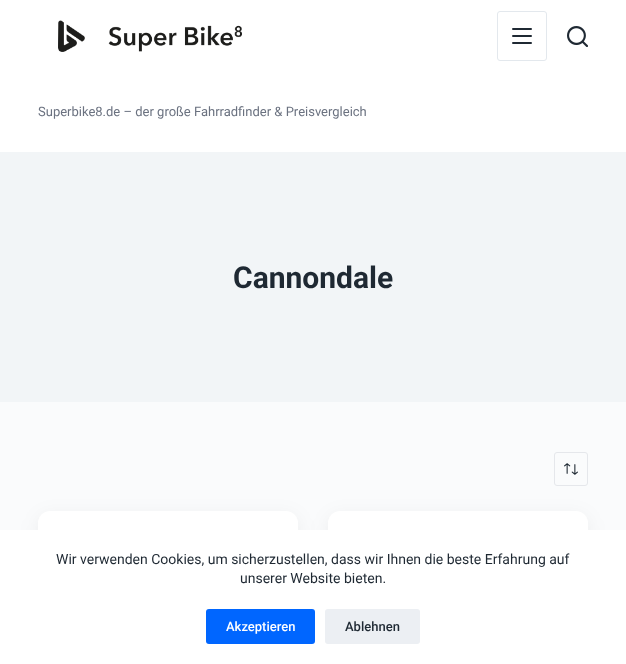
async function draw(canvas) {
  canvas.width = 626
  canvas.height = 664
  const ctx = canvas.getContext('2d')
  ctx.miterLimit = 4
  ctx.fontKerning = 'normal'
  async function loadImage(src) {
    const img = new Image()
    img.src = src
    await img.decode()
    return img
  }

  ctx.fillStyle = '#fafbfc'
  ctx.fillRect(0, 0, 626, 664)
  ctx.fillStyle = '#fff'
  ctx.fillRect(0, 0, 626, 152)
  ctx.drawImage(await loadImage('image0.png'), 58, 20, 184, 32)
  ctx.beginPath()
  ctx.roundRect(497.5, 11.5, 49, 49, 2.5)
  ctx.strokeStyle = '#e3e8ed'
  ctx.stroke()
  ctx.fillStyle = '#1f2933'
  ctx.beginPath()
  ctx.roundRect(512, 28, 20, 2, 1)
  ctx.fill()
  ctx.beginPath()
  ctx.roundRect(512, 35, 20, 2, 1)
  ctx.fill()
  ctx.beginPath()
  ctx.roundRect(512, 42, 20, 2, 1)
  ctx.fill()
  ctx.drawImage(await loadImage('image1.png'), 567, 26, 21, 21)
  ctx.font = '13px Roboto'
  ctx.fillStyle = '#6b7280'
  ctx.fillText('Superbike8.de – der große Fahrradfinder & Preisvergleich', 38, 116)
  ctx.fillStyle = '#f2f5f7'
  ctx.fillRect(0, 152, 626, 250)
  ctx.font = 'bold 30px Roboto'
  ctx.fillStyle = '#1f2933'
  ctx.fillText('Cannondale', 233, 288)
  ctx.beginPath()
  ctx.roundRect(554.5, 452.5, 33, 33, 2.5)
  ctx.strokeStyle = '#e5e7eb'
  ctx.stroke()
  ctx.drawImage(await loadImage('image2.png'), 564, 463, 14, 12)
  ctx.fillStyle = '#0000000f'
  ctx.filter = 'blur(10px)'
  ctx.beginPath()
  ctx.roundRect(38, 516, 260, 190, 12)
  ctx.fill()
  ctx.filter = 'none'
  ctx.fillStyle = '#fff'
  ctx.beginPath()
  ctx.roundRect(38, 511, 260, 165, 12)
  ctx.fill()
  ctx.fillStyle = '#0000000f'
  ctx.filter = 'blur(10px)'
  ctx.beginPath()
  ctx.roundRect(328, 516, 260, 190, 12)
  ctx.fill()
  ctx.filter = 'none'
  ctx.fillStyle = '#fff'
  ctx.beginPath()
  ctx.roundRect(328, 511, 260, 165, 12)
  ctx.fill()
  ctx.fillRect(0, 530, 626, 134)
  ctx.font = '14px Roboto'
  ctx.fillStyle = '#1f2933'
  ctx.fillText('Wir verwenden Cookies, um sicherzustellen, dass wir Ihnen die beste Erfahrung auf', 56, 564)
  ctx.fillText('unserer Website bieten.', 240, 583)
  ctx.fillStyle = '#06f'
  ctx.beginPath()
  ctx.roundRect(206, 609, 109, 35, 3)
  ctx.fill()
  ctx.font = '500 13px Roboto'
  ctx.fillStyle = '#fff'
  ctx.fillText('Akzeptieren', 226, 631)
  ctx.fillStyle = '#eceff3'
  ctx.beginPath()
  ctx.roundRect(325, 609, 95, 35, 3)
  ctx.fill()
  ctx.fillStyle = '#1f2933'
  ctx.fillText('Ablehnen', 345, 631)
}

draw(document.querySelector('canvas'))
